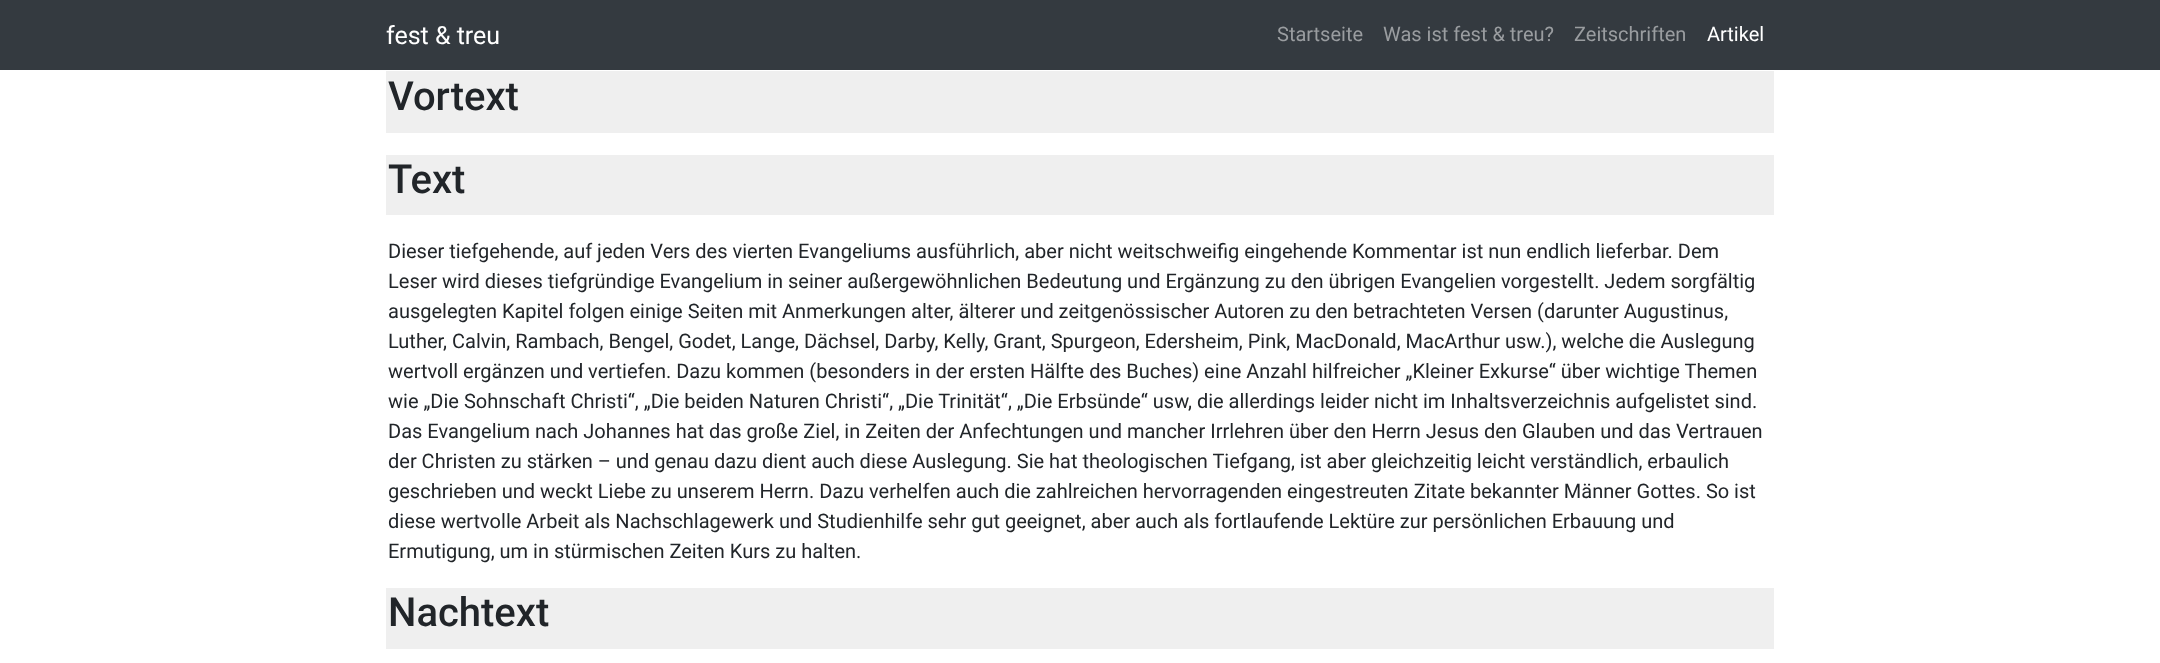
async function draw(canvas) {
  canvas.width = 2160
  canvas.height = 663
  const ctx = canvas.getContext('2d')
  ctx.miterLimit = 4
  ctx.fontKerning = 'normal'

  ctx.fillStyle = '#fff'
  ctx.fillRect(0, 0, 2160, 663)
  ctx.fillStyle = '#343a40'
  ctx.fillRect(0, 0, 2160, 70)
  ctx.font = '25px Roboto'
  ctx.fillStyle = '#fff'
  ctx.fillText('fest & treu', 386, 44)
  ctx.font = '20px Roboto'
  ctx.fillStyle = '#9a9da0'
  ctx.fillText('Startseite', 1277, 41)
  ctx.fillText('Was ist fest & treu?', 1383, 41)
  ctx.fillText('Zeitschriften', 1574, 41)
  ctx.fillStyle = '#fff'
  ctx.fillText('Artikel', 1707, 41)
  ctx.fillStyle = '#efefef'
  ctx.fillRect(386, 71, 1388, 62)
  ctx.font = '500 40px Roboto'
  ctx.fillStyle = '#212529'
  ctx.fillText('Vortext', 388, 110)
  ctx.fillStyle = '#efefef'
  ctx.fillRect(386, 155, 1388, 60)
  ctx.fillStyle = '#212529'
  ctx.fillText('Text', 388, 193)
  ctx.font = '20px Roboto'
  ctx.fillText('Dieser tiefgehende, auf jeden Vers des vierten Evangeliums ausführlich, aber nicht weitschweifig eingehende Kommentar ist nun endlich lieferbar. Dem', 388, 258)
  ctx.fillText('Leser wird dieses tiefgründige Evangelium in seiner außergewöhnlichen Bedeutung und Ergänzung zu den übrigen Evangelien vorgestellt. Jedem sorgfältig', 388, 288)
  ctx.fillText('ausgelegten Kapitel folgen einige Seiten mit Anmerkungen alter, älterer und zeitgenössischer Autoren zu den betrachteten Versen (darunter Augustinus,', 388, 318)
  ctx.fillText('Luther, Calvin, Rambach, Bengel, Godet, Lange, Dächsel, Darby, Kelly, Grant, Spurgeon, Edersheim, Pink, MacDonald, MacArthur usw.), welche die Auslegung', 388, 348)
  ctx.fillText('wertvoll ergänzen und vertiefen. Dazu kommen (besonders in der ersten Hälfte des Buches) eine Anzahl hilfreicher „Kleiner Exkurse“ über wichtige Themen', 388, 378)
  ctx.fillText('wie „Die Sohnschaft Christi“, „Die beiden Naturen Christi“, „Die Trinität“, „Die Erbsünde“ usw, die allerdings leider nicht im Inhaltsverzeichnis aufgelistet sind.', 388, 408)
  ctx.fillText('Das Evangelium nach Johannes hat das große Ziel, in Zeiten der Anfechtungen und mancher Irrlehren über den Herrn Jesus den Glauben und das Vertrauen', 388, 438)
  ctx.fillText('der Christen zu stärken – und genau dazu dient auch diese Auslegung. Sie hat theologischen Tiefgang, ist aber gleichzeitig leicht verständlich, erbaulich', 388, 468)
  ctx.fillText('geschrieben und weckt Liebe zu unserem Herrn. Dazu verhelfen auch die zahlreichen hervorragenden eingestreuten Zitate bekannter Männer Gottes. So ist', 388, 498)
  ctx.fillText('diese wertvolle Arbeit als Nachschlagewerk und Studienhilfe sehr gut geeignet, aber auch als fortlaufende Lektüre zur persönlichen Erbauung und', 388, 528)
  ctx.fillText('Ermutigung, um in stürmischen Zeiten Kurs zu halten.', 388, 558)
  ctx.fillStyle = '#efefef'
  ctx.fillRect(386, 588, 1388, 61)
  ctx.font = '500 40px Roboto'
  ctx.fillStyle = '#212529'
  ctx.fillText('Nachtext', 388, 626)
}

draw(document.querySelector('canvas'))
